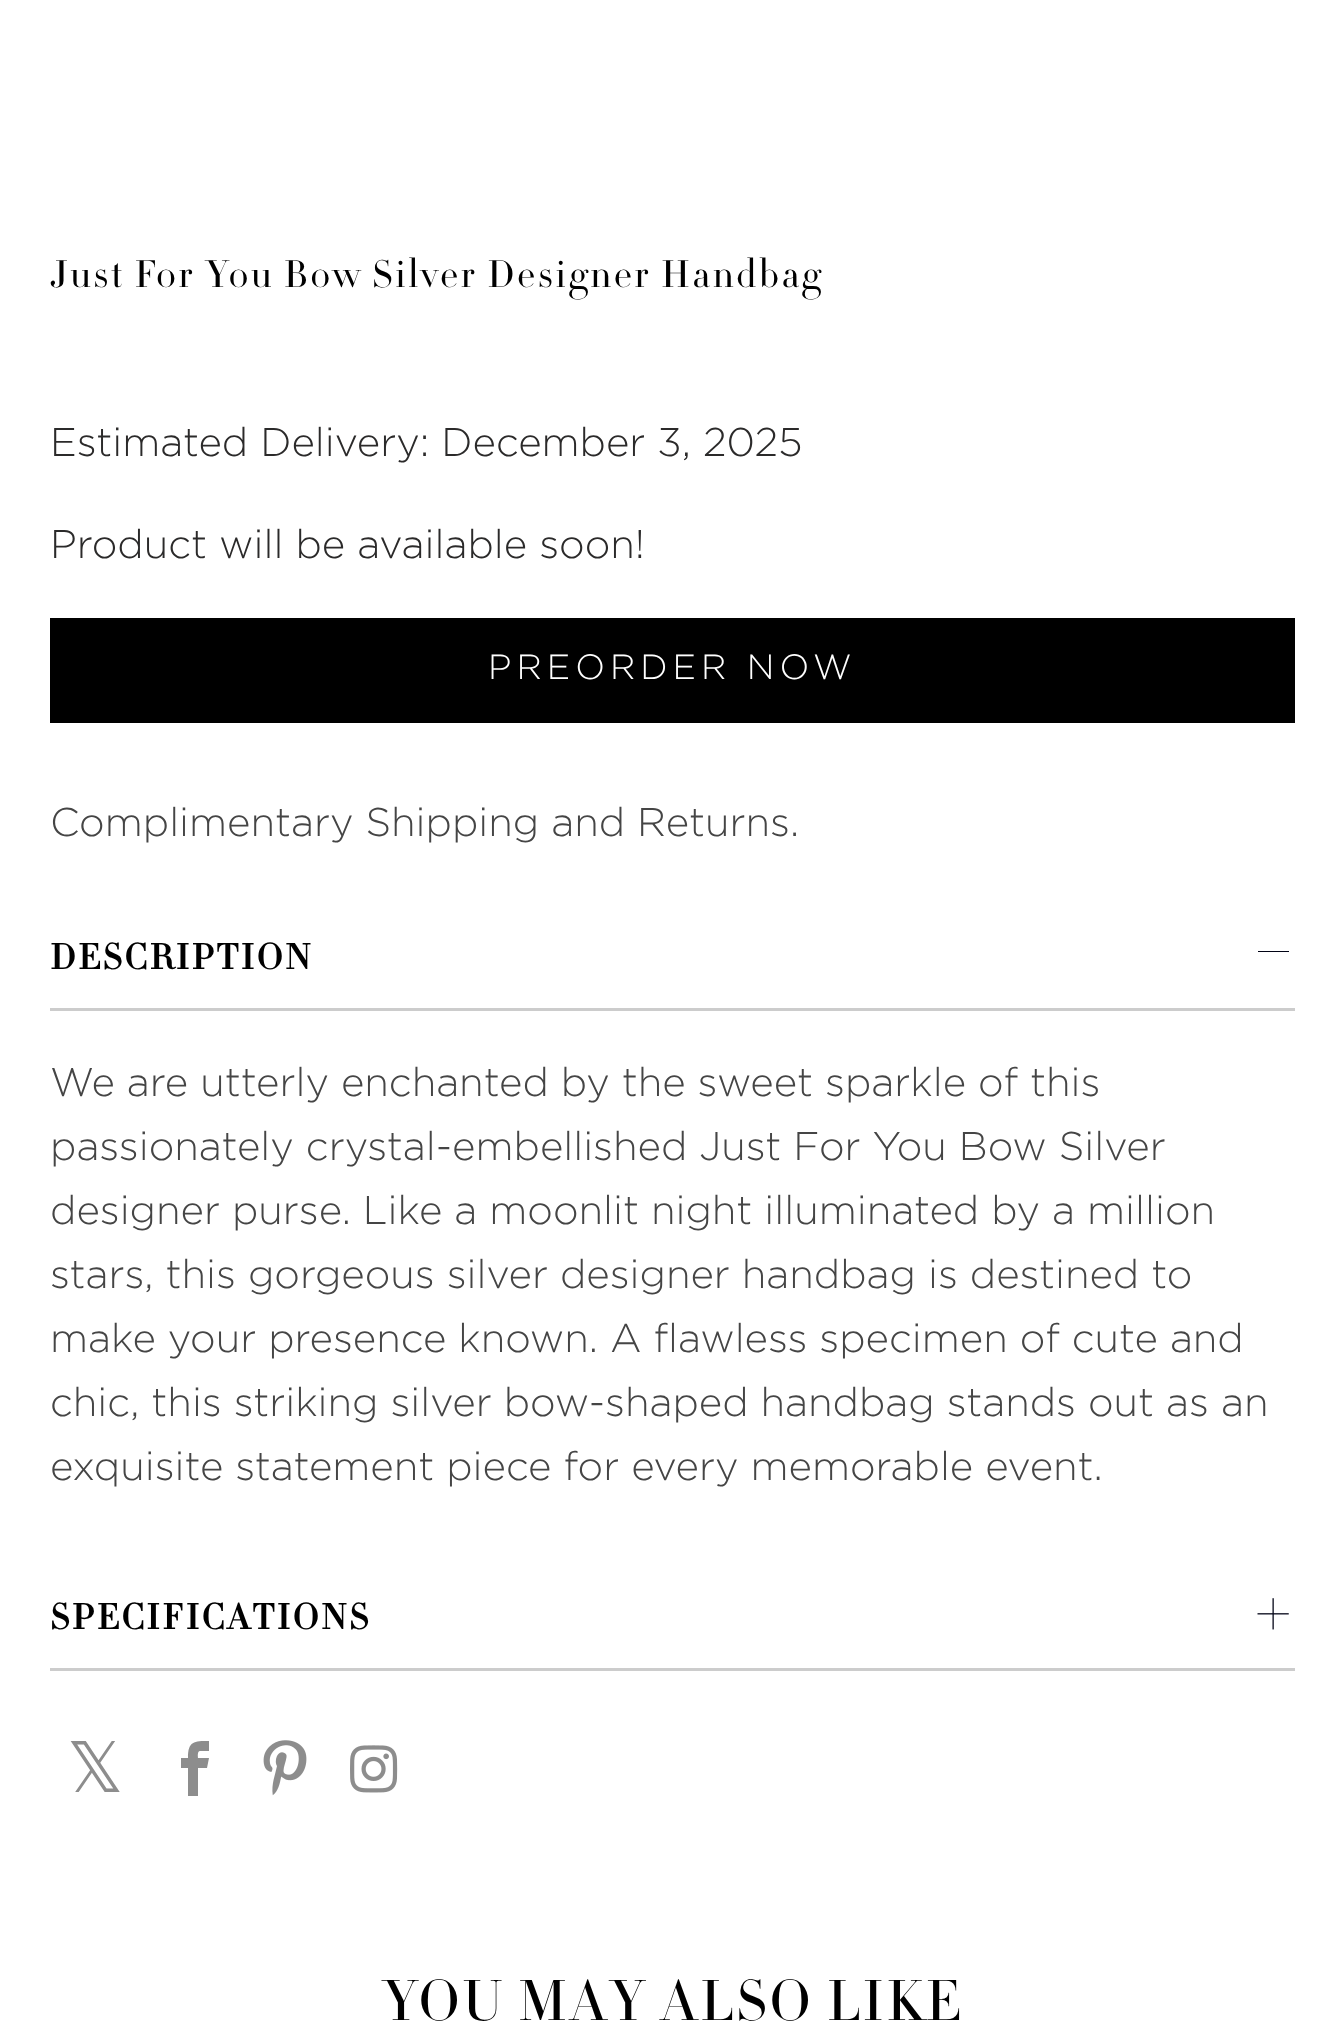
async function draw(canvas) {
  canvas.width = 1343
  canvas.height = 2042
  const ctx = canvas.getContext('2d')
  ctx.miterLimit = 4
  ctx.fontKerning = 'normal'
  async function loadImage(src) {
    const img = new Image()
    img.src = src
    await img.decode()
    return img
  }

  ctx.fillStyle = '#fff'
  ctx.fillRect(0, 0, 1343, 2042)
  ctx.letterSpacing = '2.5px'
  ctx.font = '40px Didot'
  ctx.fillStyle = '#000'
  ctx.fillText('Just For You Bow Silver Designer Handbag', 50, 287)
  ctx.letterSpacing = '0px'
  ctx.font = '300 40px Gotham'
  ctx.fillStyle = '#2b2a2a'
  ctx.fillText('Estimated Delivery: December 3, 2025', 50, 456)
  ctx.fillText('Product will be available soon!', 50, 558)
  ctx.fillStyle = '#000'
  ctx.fillRect(50, 618, 1245, 105)
  ctx.letterSpacing = '5px'
  ctx.font = '300 35px Gotham'
  ctx.fillStyle = '#fff'
  ctx.fillText('PREORDER NOW', 488, 679)
  ctx.letterSpacing = '0px'
  ctx.font = '300 40px Gotham'
  ctx.fillStyle = '#454545'
  ctx.fillText('Complimentary Shipping and Returns.', 50, 836)
  ctx.fillStyle = '#ccc'
  ctx.fillRect(50, 1008, 1245, 3)
  ctx.letterSpacing = '2.5px'
  ctx.font = 'bold 37.5px Didot'
  ctx.fillStyle = '#000'
  ctx.fillText('DESCRIPTION', 50, 969)
  ctx.fillStyle = '#010315'
  ctx.fillRect(1258, 951, 31, 1)
  ctx.letterSpacing = '0px'
  ctx.font = '300 40px Gotham'
  ctx.fillStyle = '#454545'
  ctx.fillText('We are utterly enchanted by the sweet sparkle of this', 50, 1096)
  ctx.fillText('passionately crystal-embellished Just For You Bow Silver', 50, 1160)
  ctx.fillText('designer purse. Like a moonlit night illuminated by a million', 50, 1224)
  ctx.fillText('stars, this gorgeous silver designer handbag is destined to', 50, 1288)
  ctx.fillText('make your presence known. A flawless specimen of cute and', 50, 1352)
  ctx.fillText('chic, this striking silver bow-shaped handbag stands out as an', 50, 1416)
  ctx.fillText('exquisite statement piece for every memorable event.', 50, 1480)
  ctx.fillStyle = '#ccc'
  ctx.fillRect(50, 1668, 1245, 3)
  ctx.letterSpacing = '2.5px'
  ctx.font = 'bold 37.5px Didot'
  ctx.fillStyle = '#000'
  ctx.fillText('SPECIFICATIONS', 50, 1629)
  ctx.drawImage(await loadImage('image0.png'), 1257, 1598, 32, 32)
  ctx.letterSpacing = '0px'
  ctx.font = '70px DejaVu Sans'
  ctx.fillStyle = '#8d8d8d'
  ctx.fillText('𝕏', 67, 1792)
  ctx.beginPath()
  ctx.moveTo(200, 1751)
  ctx.lineTo(209, 1751)
  ctx.lineTo(209, 1741)
  ctx.bezierCurveTo(194, 1741, 188, 1741, 188, 1758)
  ctx.lineTo(181, 1758)
  ctx.lineTo(181, 1768)
  ctx.lineTo(188, 1768)
  ctx.lineTo(188, 1796)
  ctx.lineTo(198, 1796)
  ctx.lineTo(198, 1768)
  ctx.lineTo(207, 1768)
  ctx.lineTo(209, 1758)
  ctx.lineTo(198, 1758)
  ctx.bezierCurveTo(198, 1757, 197, 1751, 200, 1751)
  ctx.closePath()
  ctx.fill()
  ctx.drawImage(await loadImage('image1.png'), 263, 1740, 44, 56)
  ctx.drawImage(await loadImage('image2.png'), 350, 1745, 48, 48)
  ctx.letterSpacing = '2.5px'
  ctx.font = '60px Didot'
  ctx.fillStyle = '#000'
  ctx.fillText('YOU MAY ALSO LIKE', 382, 2020)
}

draw(document.querySelector('canvas'))
